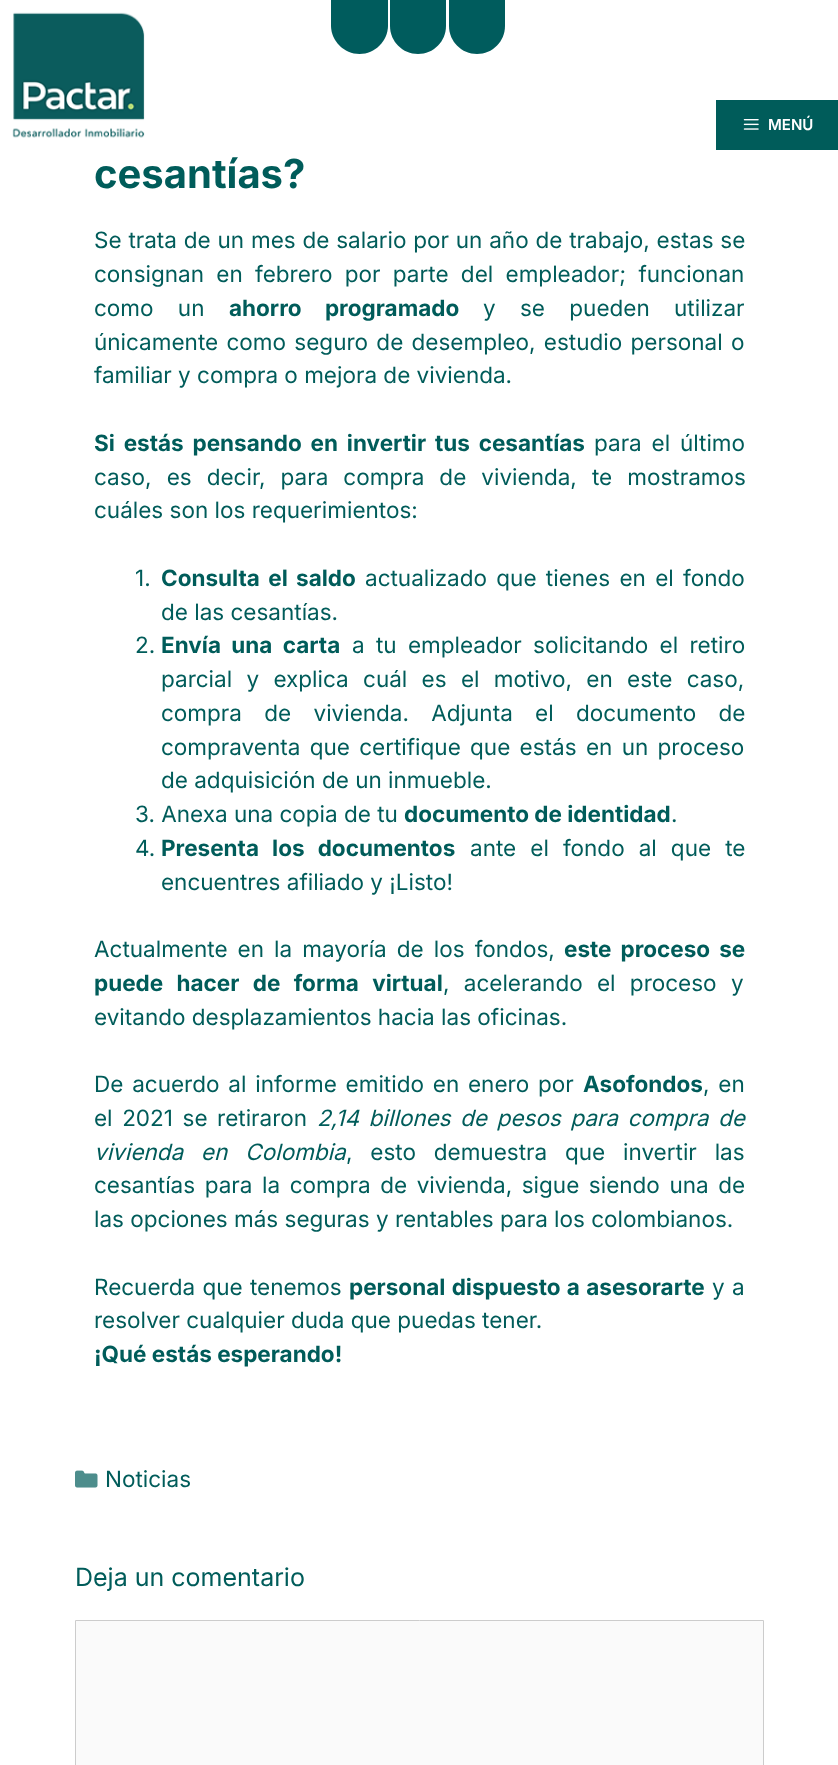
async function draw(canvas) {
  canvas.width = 838
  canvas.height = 1765
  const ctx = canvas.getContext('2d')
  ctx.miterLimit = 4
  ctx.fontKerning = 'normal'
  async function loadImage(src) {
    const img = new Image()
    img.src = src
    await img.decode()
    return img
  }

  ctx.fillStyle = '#fff'
  ctx.fillRect(0, 0, 838, 1765)
  ctx.drawImage(await loadImage('image0.png'), 12, 12, 133, 126)
  ctx.fillStyle = '#005c5d'
  ctx.beginPath()
  ctx.moveTo(331, -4)
  ctx.lineTo(388, -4)
  ctx.lineTo(388, 25.5)
  ctx.bezierCurveTo(388, 41, 375, 54, 359.5, 54)
  ctx.bezierCurveTo(344, 54, 331, 41, 331, 25.5)
  ctx.closePath()
  ctx.fill()
  ctx.beginPath()
  ctx.moveTo(390, -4)
  ctx.lineTo(446, -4)
  ctx.lineTo(446, 26)
  ctx.bezierCurveTo(446, 41.5, 433.5, 54, 418, 54)
  ctx.bezierCurveTo(402.5, 54, 390, 41.5, 390, 26)
  ctx.closePath()
  ctx.fill()
  ctx.beginPath()
  ctx.moveTo(449, -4)
  ctx.lineTo(505, -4)
  ctx.lineTo(505, 26)
  ctx.bezierCurveTo(505, 41.5, 492.5, 54, 477, 54)
  ctx.bezierCurveTo(461.5, 54, 449, 41.5, 449, 26)
  ctx.closePath()
  ctx.fill()
  ctx.fillStyle = '#005c5a'
  ctx.fillRect(716, 100, 122, 50)
  ctx.drawImage(await loadImage('image1.png'), 743, 119, 16, 11)
  ctx.font = '600 15px Inter'
  ctx.fillStyle = '#fff'
  ctx.fillText('MENÚ', 768, 130)
  ctx.font = 'bold 40px Inter'
  ctx.fillStyle = '#005c5a'
  ctx.fillText('cesantías?', 94, 188)
  ctx.wordSpacing = '0.5px'
  ctx.font = '22.5px Inter'
  ctx.fillText('Se trata de un mes de salario por un año de trabajo, estas se', 94, 248)
  ctx.wordSpacing = '6px'
  ctx.fillText('consignan en febrero por parte del empleador; funcionan', 94, 282)
  ctx.wordSpacing = '18px'
  ctx.fillText('como un', 94, 316)
  ctx.font = 'bold 22.5px Inter'
  ctx.fillText('ahorro programado', 229, 316)
  ctx.font = '22.5px Inter'
  ctx.fillText('y se pueden utilizar', 483, 316)
  ctx.wordSpacing = '2px'
  ctx.fillText('únicamente como seguro de desempleo, estudio personal o', 94, 350)
  ctx.wordSpacing = '0px'
  ctx.fillText('familiar y compra o mejora de vivienda.', 94, 383)
  ctx.wordSpacing = '3.5px'
  ctx.font = 'bold 22.5px Inter'
  ctx.fillText('Si estás pensando en invertir tus cesantías', 94, 451)
  ctx.font = '22.5px Inter'
  ctx.fillText('para el último', 594, 451)
  ctx.wordSpacing = '8.75px'
  ctx.fillText('caso, es decir, para compra de vivienda, te mostramos', 94, 485)
  ctx.wordSpacing = '0px'
  ctx.fillText('cuáles son los requerimientos:', 94, 518)
  ctx.fillText('1.', 135, 586)
  ctx.wordSpacing = '3px'
  ctx.font = 'bold 22.5px Inter'
  ctx.fillText('Consulta el saldo', 161, 586)
  ctx.font = '22.5px Inter'
  ctx.fillText('actualizado que tienes en el fondo', 365, 586)
  ctx.wordSpacing = '0px'
  ctx.fillText('de las cesantías.', 161, 620)
  ctx.fillText('2.', 135, 653)
  ctx.wordSpacing = '5px'
  ctx.font = 'bold 22.5px Inter'
  ctx.fillText('Envía una carta', 161, 653)
  ctx.font = '22.5px Inter'
  ctx.fillText('a tu empleador solicitando el retiro', 352, 653)
  ctx.wordSpacing = '8px'
  ctx.fillText('parcial y explica cuál es el motivo, en este caso,', 161, 687)
  ctx.wordSpacing = '16px'
  ctx.fillText('compra de vivienda. Adjunta el documento de', 161, 721)
  ctx.wordSpacing = '3px'
  ctx.fillText('compraventa que certifique que estás en un proceso', 161, 755)
  ctx.wordSpacing = '0px'
  ctx.fillText('de adquisición de un inmueble.', 161, 788)
  ctx.fillText('3. Anexa una copia de tu', 135, 822)
  ctx.font = 'bold 22.5px Inter'
  ctx.fillText('documento de identidad', 404, 822)
  ctx.font = '22.5px Inter'
  ctx.fillText('.', 671, 822)
  ctx.fillText('4.', 135, 856)
  ctx.wordSpacing = '7.75px'
  ctx.font = 'bold 22.5px Inter'
  ctx.fillText('Presenta los documentos', 161, 856)
  ctx.font = '22.5px Inter'
  ctx.fillText('ante el fondo al que te', 470, 856)
  ctx.wordSpacing = '0px'
  ctx.fillText('encuentres afiliado y ¡Listo!', 161, 890)
  ctx.wordSpacing = '3.75px'
  ctx.fillText('Actualmente en la mayoría de los fondos,', 94, 957)
  ctx.font = 'bold 22.5px Inter'
  ctx.fillText('este proceso se', 564, 957)
  ctx.wordSpacing = '8px'
  ctx.fillText('puede hacer de forma virtual', 94, 991)
  ctx.font = '22.5px Inter'
  ctx.fillText(', acelerando el proceso y', 443, 991)
  ctx.wordSpacing = '0px'
  ctx.fillText('evitando desplazamientos hacia las oficinas.', 94, 1025)
  ctx.wordSpacing = '2.5px'
  ctx.fillText('De acuerdo al informe emitido en enero por', 94, 1092)
  ctx.wordSpacing = '0px'
  ctx.font = 'bold 22.5px Inter'
  ctx.fillText('Asofondos', 583, 1092)
  ctx.wordSpacing = '2.5px'
  ctx.font = '22.5px Inter'
  ctx.fillText(', en', 703, 1092)
  ctx.wordSpacing = '3.25px'
  ctx.fillText('el 2021 se retiraron', 94, 1126)
  ctx.font = 'italic 22.5px Inter'
  ctx.fillText('2,14 billones de pesos para compra de', 317, 1126)
  ctx.wordSpacing = '11.5px'
  ctx.fillText('vivienda en Colombia', 94, 1160)
  ctx.font = '22.5px Inter'
  ctx.fillText(', esto demuestra que invertir las', 346, 1160)
  ctx.wordSpacing = '3.25px'
  ctx.fillText('cesantías para la compra de vivienda, sigue siendo una de', 94, 1193)
  ctx.wordSpacing = '0px'
  ctx.fillText('las opciones más seguras y rentables para los colombianos.', 94, 1227)
  ctx.wordSpacing = '1px'
  ctx.fillText('Recuerda que tenemos', 94, 1295)
  ctx.font = 'bold 22.5px Inter'
  ctx.fillText('personal dispuesto a asesorarte', 349, 1295)
  ctx.font = '22.5px Inter'
  ctx.fillText('y a', 712, 1295)
  ctx.wordSpacing = '0px'
  ctx.fillText('resolver cualquier duda que puedas tener.', 94, 1328)
  ctx.font = 'bold 22.5px Inter'
  ctx.fillText('¡Qué estás esperando!', 94, 1362)
  ctx.drawImage(await loadImage('image2.png'), 75, 1470, 23, 18)
  ctx.font = '22.5px Inter'
  ctx.fillText('Noticias', 105, 1487)
  ctx.font = '25px Inter'
  ctx.fillText('Deja un comentario', 75, 1586)
  ctx.fillStyle = '#fafafa'
  ctx.beginPath()
  ctx.rect(75.5, 1620.5, 688, 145)
  ctx.fill()
  ctx.strokeStyle = '#ccc'
  ctx.stroke()
}

draw(document.querySelector('canvas'))
